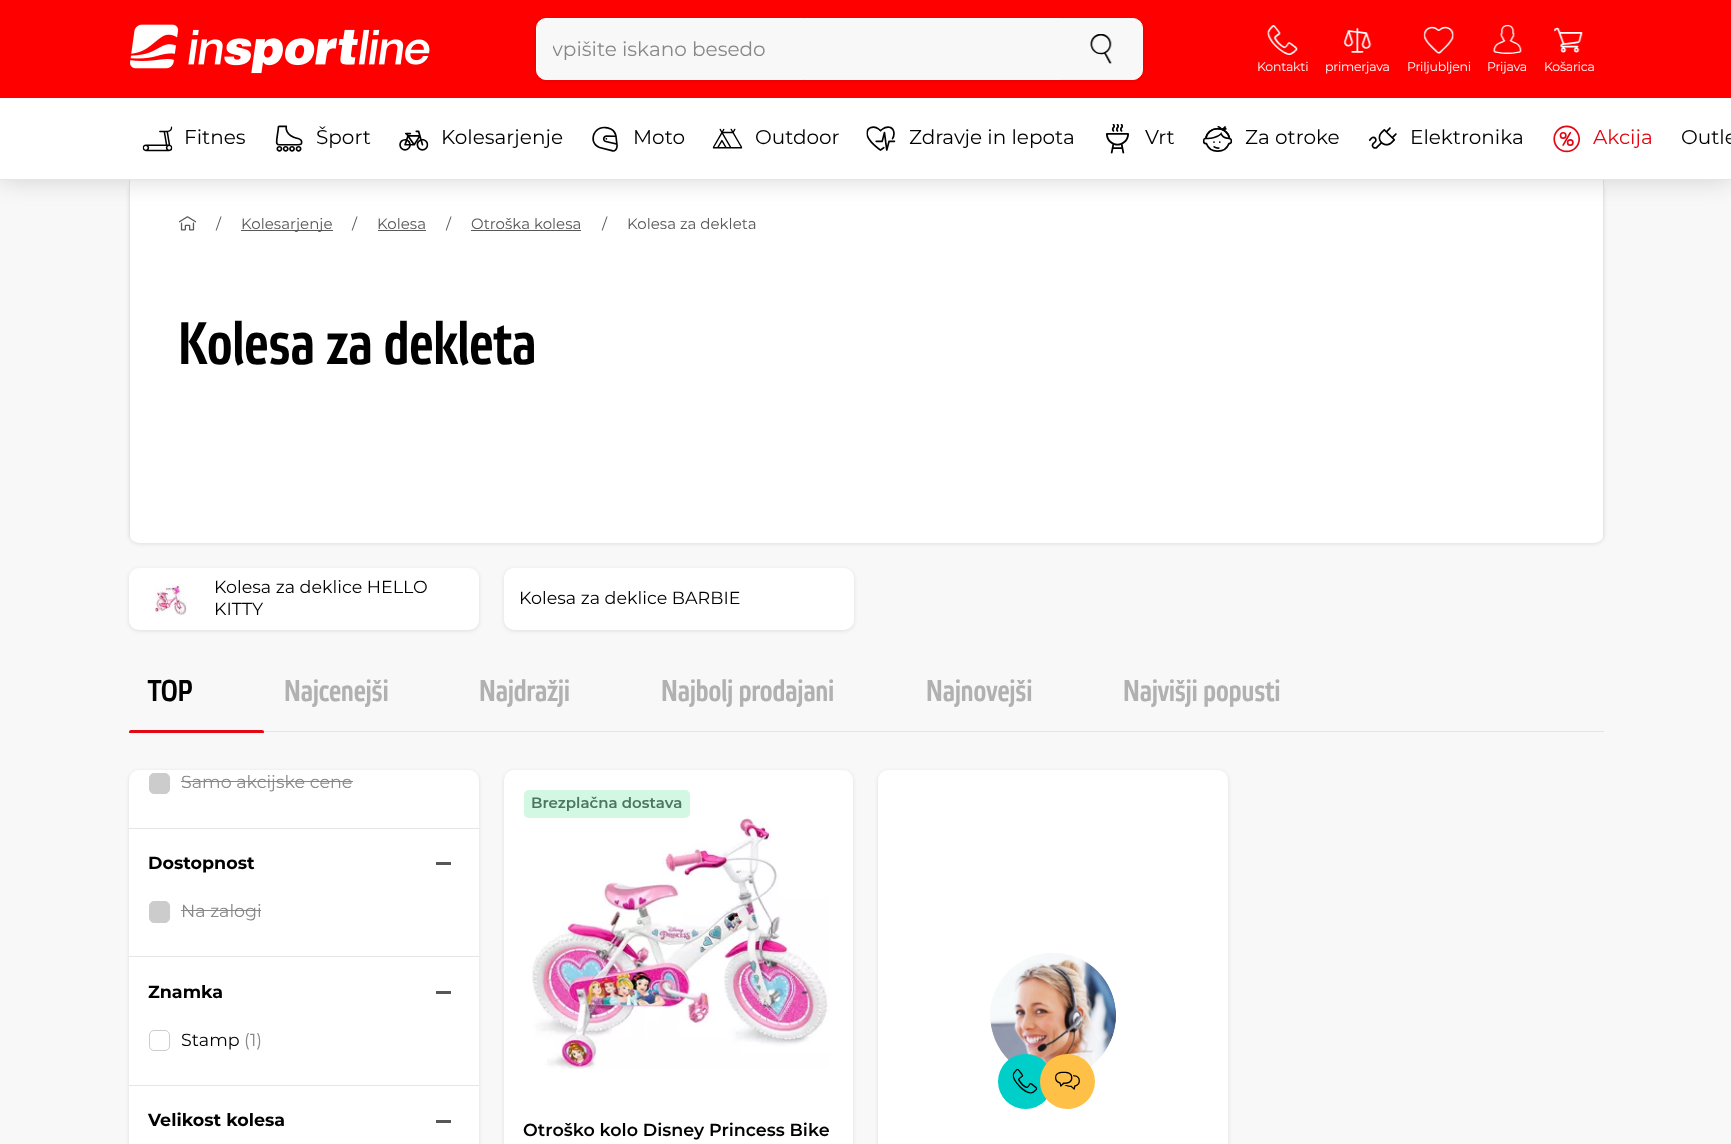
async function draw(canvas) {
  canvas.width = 1731
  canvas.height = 1144
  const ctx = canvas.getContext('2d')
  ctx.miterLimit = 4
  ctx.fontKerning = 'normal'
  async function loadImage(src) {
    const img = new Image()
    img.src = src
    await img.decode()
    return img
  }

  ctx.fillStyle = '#f00'
  ctx.fillRect(0, 0, 1731, 1144)
  ctx.drawImage(await loadImage('image0.png'), 130, 24, 300, 50)
  ctx.fillStyle = '#0000001a'
  ctx.filter = 'blur(2px)'
  ctx.beginPath()
  ctx.roundRect(536, 19, 607, 62, 10)
  ctx.fill()
  ctx.filter = 'none'
  ctx.fillStyle = '#f8f8f8'
  ctx.beginPath()
  ctx.roundRect(536.5, 18.5, 524, 61, [9.5, 0, 0, 9.5])
  ctx.fill()
  ctx.strokeStyle = '#fff'
  ctx.stroke()
  ctx.save()
  ctx.beginPath()
  ctx.rect(553, 38, 492, 23)
  ctx.clip()
  ctx.font = '100 20px Montserrat'
  ctx.fillStyle = '#888'
  ctx.fillText('vpišite iskano besedo', 552, 56)
  ctx.restore()
  ctx.beginPath()
  ctx.roundRect(1060.5, 18.5, 82, 61, [0, 9.5, 9.5, 0])
  ctx.fill()
  ctx.strokeStyle = '#f8f8f8'
  ctx.stroke()
  ctx.drawImage(await loadImage('image1.png'), 1090, 34, 22, 30)
  ctx.drawImage(await loadImage('image2.png'), 1267, 25, 31, 30)
  ctx.letterSpacing = '-0.25px'
  ctx.font = '100 12.5px Montserrat'
  ctx.fillStyle = '#fff'
  ctx.fillText('Kontakti', 1257, 71)
  ctx.drawImage(await loadImage('image3.png'), 1343, 28, 29, 25)
  ctx.fillText('primerjava', 1325, 71)
  ctx.drawImage(await loadImage('image4.png'), 1423, 26, 32, 28)
  ctx.fillText('Priljubljeni', 1407, 71)
  ctx.drawImage(await loadImage('image5.png'), 1493, 25, 29, 29)
  ctx.fillText('Prijava', 1487, 71)
  ctx.drawImage(await loadImage('image6.png'), 1553, 27, 30, 26)
  ctx.fillText('Košarica', 1544, 71)
  ctx.fillStyle = '#f8f8f8'
  ctx.fillRect(0, 180, 1731, 964)
  ctx.fillStyle = '#0000001a'
  ctx.filter = 'blur(2px)'
  ctx.beginPath()
  ctx.roundRect(129, 181, 1475, 363, 10)
  ctx.fill()
  ctx.filter = 'none'
  ctx.fillStyle = '#fff'
  ctx.beginPath()
  ctx.roundRect(129, 180, 1475, 363, [0, 0, 10, 10])
  ctx.fill()
  ctx.fillStyle = '#e5e5e5'
  ctx.fillRect(1603, 180, 1, 358)
  ctx.fillRect(129, 180, 1, 358)
  ctx.drawImage(await loadImage('image17.png'), 179, 216, 17, 15)
  ctx.fillStyle = '#00000026'
  ctx.filter = 'blur(12.5px)'
  ctx.beginPath()
  ctx.rect(0, 140, 1731, 41)
  ctx.fill()
  ctx.filter = 'none'
  ctx.fillStyle = '#fff'
  ctx.fillRect(0, 98, 1731, 81)
  ctx.fillStyle = '#e5e5e5'
  ctx.fillRect(0, 179, 1731, 1)
  ctx.drawImage(await loadImage('image7.png'), 142, 126, 31, 26)
  ctx.letterSpacing = '0px'
  ctx.font = '100 20px Montserrat'
  ctx.fillStyle = '#000'
  ctx.fillText('Fitnes', 184, 144)
  ctx.drawImage(await loadImage('image8.png'), 275, 125, 28, 27)
  ctx.fillText('Šport', 316, 144)
  ctx.drawImage(await loadImage('image9.png'), 399, 130, 30, 21)
  ctx.fillText('Kolesarjenje', 441, 144)
  ctx.drawImage(await loadImage('image10.png'), 592, 126, 26, 26)
  ctx.fillText('Moto', 633, 144)
  ctx.drawImage(await loadImage('image11.png'), 712, 128, 31, 21)
  ctx.fillText('Outdoor', 755, 144)
  ctx.drawImage(await loadImage('image12.png'), 866, 126, 30, 25)
  ctx.fillText('Zdravje in lepota', 909, 144)
  ctx.drawImage(await loadImage('image13.png'), 1106, 124, 23, 30)
  ctx.fillText('Vrt', 1145, 144)
  ctx.drawImage(await loadImage('image14.png'), 1202, 125, 31, 27)
  ctx.fillText('Za otroke', 1245, 144)
  ctx.drawImage(await loadImage('image15.png'), 1369, 127, 28, 22)
  ctx.fillText('Elektronika', 1410, 144)
  ctx.drawImage(await loadImage('image16.png'), 1553, 125, 27, 28)
  ctx.fillStyle = '#e30613'
  ctx.fillText('Akcija', 1593, 144)
  ctx.fillStyle = '#000'
  ctx.fillText('Outle', 1681, 144)
  ctx.font = '100 15px Montserrat'
  ctx.fillStyle = '#575757'
  ctx.fillText('/', 216, 229)
  ctx.fillRect(241, 230, 92, 1)
  ctx.fillText('Kolesarjenje', 241, 229)
  ctx.fillText('/', 352, 229)
  ctx.fillText('Kolesa', 377, 229)
  ctx.fillRect(378, 230, 48, 1)
  ctx.fillText('/', 446, 229)
  ctx.fillText('Otroška kolesa', 471, 229)
  ctx.fillRect(471, 230, 110, 1)
  ctx.fillText('/', 602, 229)
  ctx.fillText('Kolesa za dekleta', 627, 229)
  ctx.font = '500 60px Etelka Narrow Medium'
  ctx.fillStyle = '#000'
  ctx.fillText('Kolesa za dekleta', 178, 364)
  ctx.fillStyle = '#0000001a'
  ctx.filter = 'blur(2px)'
  ctx.beginPath()
  ctx.roundRect(129, 569, 350, 62, 10)
  ctx.fill()
  ctx.filter = 'none'
  ctx.fillStyle = '#fff'
  ctx.beginPath()
  ctx.roundRect(129, 568, 350, 62, 10)
  ctx.fill()
  ctx.drawImage(await loadImage('image18.png'), 155, 584, 32, 31)
  ctx.font = '100 17.5px Montserrat'
  ctx.fillStyle = '#000'
  ctx.fillText('Kolesa za deklice HELLO', 214, 593)
  ctx.fillText('KITTY', 214, 615)
  ctx.fillStyle = '#0000001a'
  ctx.filter = 'blur(2px)'
  ctx.beginPath()
  ctx.roundRect(504, 569, 350, 62, 10)
  ctx.fill()
  ctx.filter = 'none'
  ctx.fillStyle = '#fff'
  ctx.beginPath()
  ctx.roundRect(504, 568, 350, 62, 10)
  ctx.fill()
  ctx.fillStyle = '#000'
  ctx.fillText('Kolesa za deklice BARBIE', 519, 604)
  ctx.fillStyle = '#e5e5e5'
  ctx.fillRect(129, 731, 1475, 1)
  ctx.font = '500 30px Etelka Narrow Medium'
  ctx.fillStyle = '#000'
  ctx.fillText('TOP', 148, 701)
  ctx.save()
  ctx.beginPath()
  ctx.rect(129, 655, 1475, 78)
  ctx.clip()
  ctx.fillStyle = '#e30613'
  ctx.beginPath()
  ctx.roundRect(129, 730, 135, 4, 2)
  ctx.fill()
  ctx.restore()
  ctx.fillStyle = '#b1b1b1'
  ctx.fillText('Najcenejši', 284, 701)
  ctx.fillText('Najdražji', 479, 701)
  ctx.fillText('Najbolj prodajani', 661, 701)
  ctx.fillText('Najnovejši', 926, 701)
  ctx.fillText('Najvišji popusti', 1123, 701)
  ctx.fillStyle = '#0000001a'
  ctx.filter = 'blur(2px)'
  ctx.beginPath()
  ctx.roundRect(129, 771, 350, 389, 10)
  ctx.fill()
  ctx.filter = 'none'
  ctx.fillStyle = '#fff'
  ctx.beginPath()
  ctx.roundRect(129, 770, 350, 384, 10)
  ctx.fill()
  ctx.fillStyle = '#e5e5e5'
  ctx.fillRect(129, 828, 350, 1)
  ctx.fillStyle = '#ccc'
  ctx.beginPath()
  ctx.roundRect(149.5, 773.5, 20, 20, 4.5)
  ctx.fill()
  ctx.strokeStyle = '#ccc'
  ctx.stroke()
  ctx.font = '100 17.5px Montserrat'
  ctx.fillStyle = '#888'
  ctx.fillText('Samo akcijske cene', 181, 788)
  ctx.fillRect(181, 781, 172, 1)
  ctx.fillStyle = '#e5e5e5'
  ctx.fillRect(129, 956, 350, 1)
  ctx.font = '100 17.5px "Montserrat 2"'
  ctx.fillStyle = '#000'
  ctx.fillText('Dostopnost', 148, 869)
  ctx.fillStyle = '#575757'
  ctx.fillRect(436, 862, 15, 3)
  ctx.fillStyle = '#ccc'
  ctx.beginPath()
  ctx.roundRect(149.5, 901.5, 20, 21, 4.5)
  ctx.fill()
  ctx.stroke()
  ctx.font = '100 17.5px Montserrat'
  ctx.fillStyle = '#888'
  ctx.fillText('Na zalogi', 181, 917)
  ctx.fillRect(181, 910, 80, 1)
  ctx.fillStyle = '#e5e5e5'
  ctx.fillRect(129, 1085, 350, 1)
  ctx.font = '100 17.5px "Montserrat 2"'
  ctx.fillStyle = '#000'
  ctx.fillText('Znamka', 148, 998)
  ctx.fillStyle = '#575757'
  ctx.fillRect(436, 991, 15, 3)
  ctx.beginPath()
  ctx.roundRect(149.5, 1030.5, 20, 20, 4.5)
  ctx.stroke()
  ctx.font = '100 17.5px Montserrat'
  ctx.fillStyle = '#000'
  ctx.fillText('Stamp', 181, 1046)
  ctx.fillStyle = '#888'
  ctx.fillText('(1)', 244, 1046)
  ctx.font = '100 17.5px "Montserrat 2"'
  ctx.fillStyle = '#000'
  ctx.fillText('Velikost kolesa', 148, 1126)
  ctx.fillStyle = '#575757'
  ctx.fillRect(436, 1120, 15, 3)
  ctx.fillStyle = '#0000001a'
  ctx.filter = 'blur(2px)'
  ctx.beginPath()
  ctx.roundRect(504, 771, 349, 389, 10)
  ctx.fill()
  ctx.filter = 'none'
  ctx.fillStyle = '#fff'
  ctx.beginPath()
  ctx.roundRect(504, 770, 349, 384, 10)
  ctx.fill()
  ctx.drawImage(await loadImage('image19.png'), 532, 817, 297, 252)
  ctx.fillStyle = '#d2f7e3'
  ctx.beginPath()
  ctx.roundRect(524, 790, 166, 28, 5)
  ctx.fill()
  ctx.font = '100 15px "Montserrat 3"'
  ctx.fillStyle = '#4c775f'
  ctx.fillText('Brezplačna dostava', 531, 808)
  ctx.font = '100 17.5px "Montserrat 3"'
  ctx.fillStyle = '#000'
  ctx.fillText('Otroško kolo Disney Princess Bike', 523, 1136)
  ctx.fillStyle = '#0000001a'
  ctx.filter = 'blur(2px)'
  ctx.beginPath()
  ctx.roundRect(878, 771, 350, 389, 10)
  ctx.fill()
  ctx.filter = 'none'
  ctx.fillStyle = '#fff'
  ctx.beginPath()
  ctx.roundRect(878, 770, 350, 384, 10)
  ctx.fill()
  ctx.fillStyle = '#f8f8f8'
  ctx.beginPath()
  ctx.arc(1053, 1016, 63, 0, 2 * Math.PI)
  ctx.fill()
  ctx.drawImage(await loadImage('image20.png'), 990, 953, 126, 114)
  ctx.fillStyle = '#00cec9'
  ctx.beginPath()
  ctx.arc(1025.5, 1081.5, 27.5, 0, 2 * Math.PI)
  ctx.fill()
  ctx.drawImage(await loadImage('image21.png'), 1012, 1069, 26, 25)
  ctx.fillStyle = '#ffc048'
  ctx.beginPath()
  ctx.arc(1067.5, 1081.5, 27.5, 0, 2 * Math.PI)
  ctx.fill()
  ctx.drawImage(await loadImage('image22.png'), 1055, 1071, 25, 19)
}

draw(document.querySelector('canvas'))
